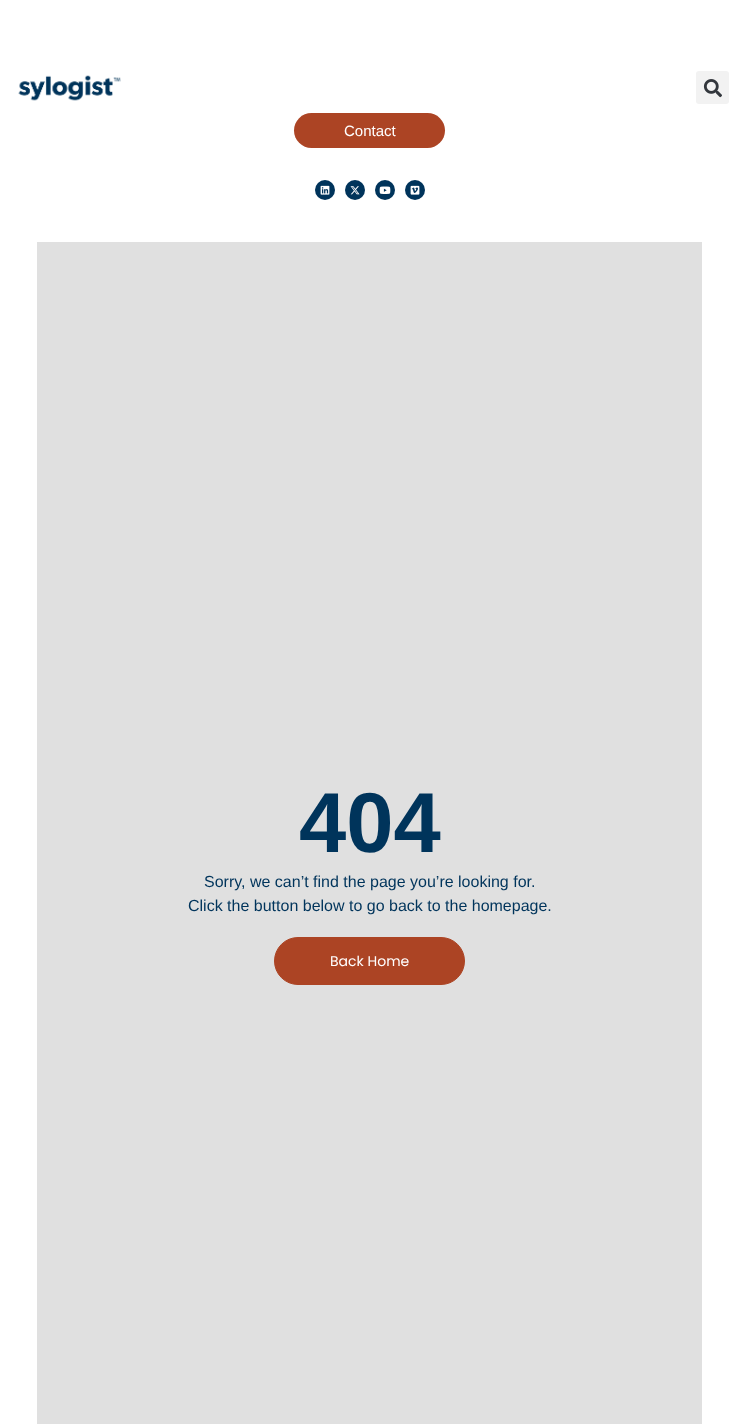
async function draw(canvas) {
  canvas.width = 739
  canvas.height = 1424
  const ctx = canvas.getContext('2d')
  ctx.miterLimit = 4
  ctx.fontKerning = 'normal'
  async function loadImage(src) {
    const img = new Image()
    img.src = src
    await img.decode()
    return img
  }

  ctx.fillStyle = '#fff'
  ctx.fillRect(0, 0, 739, 1424)
  ctx.drawImage(await loadImage('image0.png'), 18, 75, 103, 26)
  ctx.fillStyle = '#f2f2f2'
  ctx.beginPath()
  ctx.roundRect(696, 71, 33, 33, 3)
  ctx.fill()
  ctx.drawImage(await loadImage('image1.png'), 703, 79, 19, 19)
  ctx.fillStyle = '#ac4424'
  ctx.beginPath()
  ctx.roundRect(294, 113, 151, 35, 17.5)
  ctx.fill()
  ctx.font = '15px Liberation Sans'
  ctx.fillStyle = '#fff'
  ctx.fillText('Contact', 344, 136)
  ctx.fillStyle = '#00345b'
  ctx.beginPath()
  ctx.arc(325, 190, 10, 0, 2 * Math.PI)
  ctx.fill()
  ctx.drawImage(await loadImage('image2.png'), 320, 185, 10, 10)
  ctx.beginPath()
  ctx.arc(355, 190, 10, 0, 2 * Math.PI)
  ctx.fill()
  ctx.drawImage(await loadImage('image3.png'), 350, 186, 10, 9)
  ctx.beginPath()
  ctx.arc(385, 190, 10, 0, 2 * Math.PI)
  ctx.fill()
  ctx.drawImage(await loadImage('image4.png'), 379, 186, 12, 8)
  ctx.beginPath()
  ctx.arc(415, 190, 10, 0, 2 * Math.PI)
  ctx.fill()
  ctx.drawImage(await loadImage('image5.png'), 410, 185, 10, 10)
  ctx.fillStyle = '#e0e0e0'
  ctx.fillRect(37, 242, 665, 1182)
  ctx.font = 'bold 85px Liberation Sans'
  ctx.fillStyle = '#00345b'
  ctx.fillText('404', 299, 852)
  ctx.font = '16px Liberation Sans'
  ctx.fillText('Sorry, we can’t find the page you’re looking for.', 204, 887)
  ctx.fillText('Click the button below to go back to the homepage.', 188, 911)
  ctx.fillStyle = '#ac4424'
  ctx.beginPath()
  ctx.roundRect(274.5, 937.5, 190, 47, 23.5)
  ctx.fill()
  ctx.strokeStyle = '#ac4424'
  ctx.stroke()
  ctx.font = '14px Poppins'
  ctx.fillStyle = '#fff'
  ctx.fillText('Back Home', 330, 966)
}

draw(document.querySelector('canvas'))
